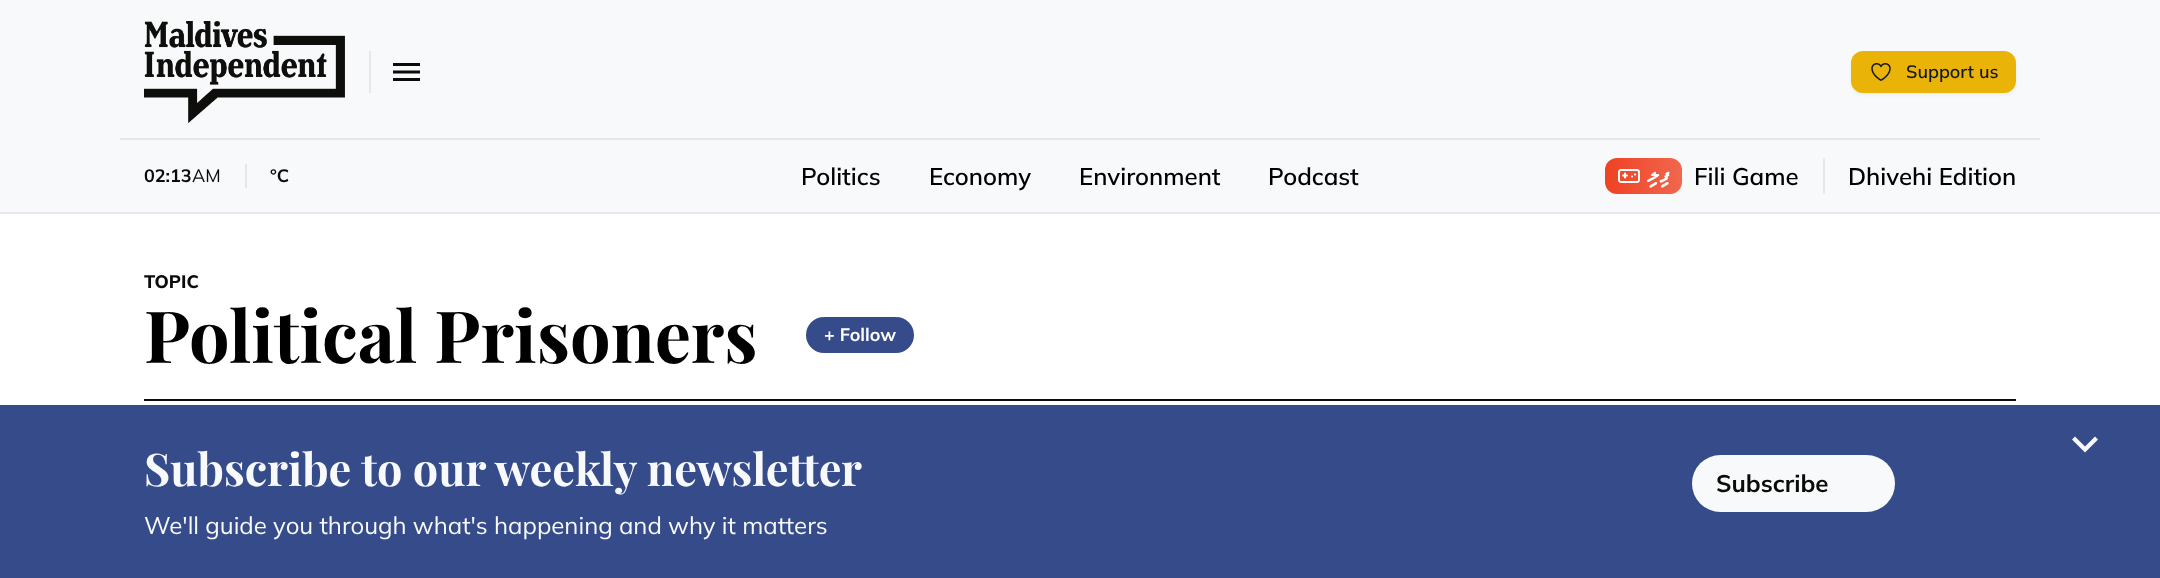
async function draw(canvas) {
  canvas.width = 2160
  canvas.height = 578
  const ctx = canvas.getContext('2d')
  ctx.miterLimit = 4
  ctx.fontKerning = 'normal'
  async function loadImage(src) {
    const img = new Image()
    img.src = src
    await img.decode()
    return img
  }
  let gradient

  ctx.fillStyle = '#f8f9fa'
  ctx.fillRect(0, 0, 2160, 578)
  ctx.fillStyle = '#e5e7eb'
  ctx.fillRect(0, 212, 2160, 2)
  ctx.drawImage(await loadImage('image0.png'), 144, 21, 201, 102)
  ctx.fillRect(369, 51, 2, 42)
  ctx.drawImage(await loadImage('image1.png'), 393, 63, 27, 18)
  ctx.fillStyle = '#0000000d'
  ctx.filter = 'blur(1.5px)'
  ctx.beginPath()
  ctx.roundRect(1851, 53, 165, 42, 12)
  ctx.fill()
  ctx.filter = 'none'
  ctx.fillStyle = '#eab308'
  ctx.beginPath()
  ctx.roundRect(1851, 51, 165, 42, 12)
  ctx.fill()
  ctx.drawImage(await loadImage('image2.png'), 1871, 63, 20, 18)
  ctx.font = '600 18px Mulish'
  ctx.fillStyle = '#111827'
  ctx.fillText('Support us', 1906, 78)
  ctx.fillStyle = '#e5e7eb'
  ctx.fillRect(120, 138, 1920, 2)
  ctx.fillRect(245, 164, 2, 24)
  ctx.font = 'bold 18px Mulish'
  ctx.fillStyle = '#090c08'
  ctx.fillText('02:13', 144, 182)
  ctx.font = '18px Mulish'
  ctx.fillText('AM', 192, 182)
  ctx.font = 'bold 18px Mulish'
  ctx.fillText('°C', 270, 182)
  ctx.font = '600 24px Mulish'
  ctx.fillStyle = '#000'
  ctx.fillText('Politics', 801, 185)
  ctx.fillText('Economy', 929, 185)
  ctx.fillText('Environment', 1079, 185)
  ctx.fillText('Podcast', 1268, 185)
  ctx.fillStyle = '#e5e7eb'
  ctx.fillRect(1823, 158, 2, 36)
  gradient = ctx.createLinearGradient(1605, 176, 1682, 176)
  gradient.addColorStop(0, '#ef4223')
  gradient.addColorStop(1, '#f1674e')
  ctx.fillStyle = gradient
  ctx.beginPath()
  ctx.roundRect(1605, 158, 77, 36, 12)
  ctx.fill()
  ctx.drawImage(await loadImage('image3.png'), 1618, 169, 22, 14)
  ctx.direction = 'rtl'
  ctx.font = 'bold 21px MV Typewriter'
  ctx.fillStyle = '#fff'
  ctx.fillText('ފިލި', 1670, 179)
  ctx.direction = 'ltr'
  ctx.font = '600 24px Mulish'
  ctx.fillStyle = '#000'
  ctx.fillText('Fili Game', 1694, 185)
  ctx.fillText('Dhivehi Edition', 1848, 185)
  ctx.fillStyle = '#fff'
  ctx.fillRect(0, 214, 2160, 191)
  ctx.fillStyle = '#090c08'
  ctx.fillRect(144, 399, 1872, 2)
  ctx.font = '800 18px Mulish'
  ctx.fillText('TOPIC', 144, 288)
  ctx.font = 'bold 72px Playfair Display'
  ctx.fillStyle = '#000'
  ctx.fillText('Political Prisoners', 144, 363)
  ctx.fillStyle = '#364b89'
  ctx.beginPath()
  ctx.roundRect(806, 317, 108, 36, 18)
  ctx.fill()
  ctx.font = 'bold 18px Mulish'
  ctx.fillStyle = '#fff'
  ctx.fillText('+ Follow', 824, 341)
  ctx.fillStyle = '#364b89'
  ctx.fillRect(0, 405, 2160, 173)
  ctx.fillStyle = '#f8f9fa'
  ctx.beginPath()
  ctx.moveTo(2095, 436.5)
  ctx.lineTo(2085, 446.5)
  ctx.lineTo(2075, 436.5)
  ctx.lineTo(2072, 439.5)
  ctx.lineTo(2085, 452.5)
  ctx.lineTo(2098, 439.5)
  ctx.closePath()
  ctx.fill()
  ctx.font = 'bold 45px Playfair Display'
  ctx.fillText('Subscribe to our weekly newsletter', 144, 486)
  ctx.font = '24px Mulish'
  ctx.fillText('We\'ll guide you through what\'s happening and why it matters', 144, 534)
  ctx.beginPath()
  ctx.roundRect(1692, 455, 203, 57, 28.5)
  ctx.fill()
  ctx.font = 'bold 24px Mulish'
  ctx.fillStyle = '#090c08'
  ctx.fillText('Subscribe', 1716, 492)
}

draw(document.querySelector('canvas'))
